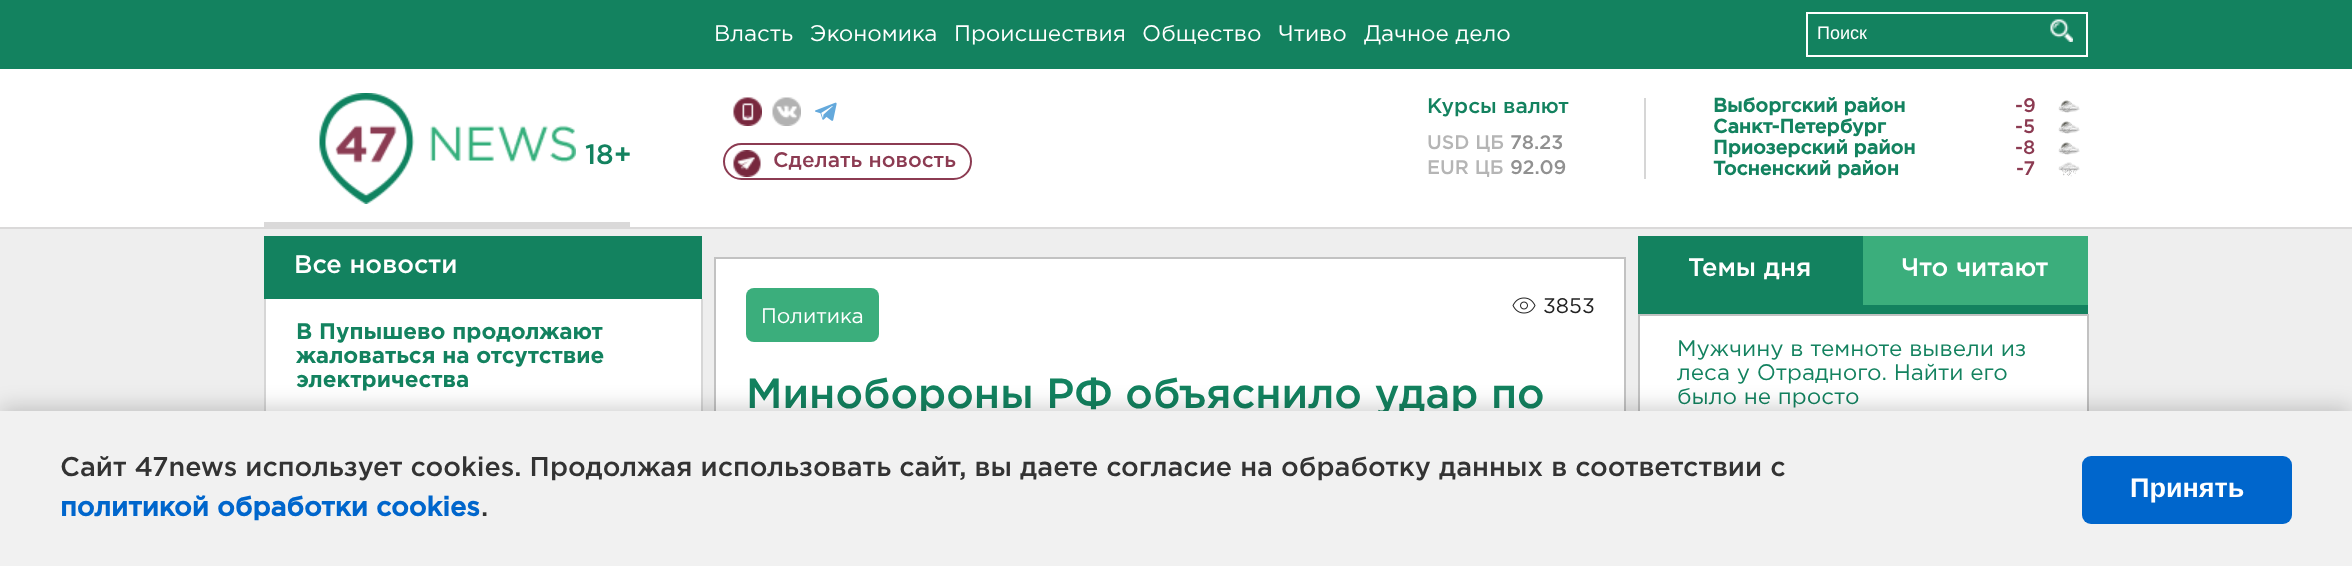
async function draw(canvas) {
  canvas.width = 2352
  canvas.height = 566
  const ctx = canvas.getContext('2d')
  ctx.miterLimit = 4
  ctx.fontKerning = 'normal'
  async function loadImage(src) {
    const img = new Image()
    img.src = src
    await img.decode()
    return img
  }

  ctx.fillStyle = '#eee'
  ctx.fillRect(0, 0, 2352, 566)
  ctx.fillStyle = '#13825f'
  ctx.fillRect(0, 0, 2352, 69)
  ctx.font = '22.5px Gotham'
  ctx.fillStyle = '#fff'
  ctx.fillText('Власть', 714, 41)
  ctx.fillText('Экономика', 810, 41)
  ctx.fillText('Происшествия', 954, 41)
  ctx.fillText('Общество', 1142, 41)
  ctx.fillText('Чтиво', 1278, 41)
  ctx.fillText('Дачное дело', 1364, 41)
  ctx.strokeStyle = '#fff'
  ctx.lineWidth = 2
  ctx.strokeRect(1807, 13, 280, 43)
  ctx.font = '18px Liberation Sans'
  ctx.fillText('Поиск', 1817, 39)
  ctx.drawImage(await loadImage('image0.png'), 2050, 19, 23, 23)
  ctx.fillRect(0, 69, 2352, 158)
  ctx.fillStyle = '#dad9d9'
  ctx.fillRect(0, 227, 2352, 2)
  ctx.fillRect(264, 222, 366, 5)
  ctx.drawImage(await loadImage('image1.png'), 319, 93, 257, 111)
  ctx.font = '500 21px Gotham'
  ctx.fillStyle = '#13825f'
  ctx.fillText('Курсы валют', 1427, 113)
  ctx.font = '500 19.5px Gotham'
  ctx.fillStyle = '#b5b5b5'
  ctx.fillText('USD ЦБ', 1427, 149)
  ctx.fillStyle = '#919191'
  ctx.fillText('78.23', 1510, 149)
  ctx.fillStyle = '#b5b5b5'
  ctx.fillText('EUR ЦБ', 1427, 174)
  ctx.fillStyle = '#919191'
  ctx.fillText('92.09', 1510, 174)
  ctx.fillStyle = '#d6d6d6'
  ctx.fillRect(1644, 98, 2, 81)
  ctx.font = 'bold 19.5px Gotham'
  ctx.fillStyle = '#13825f'
  ctx.fillText('Выборгский район', 1713, 112)
  ctx.font = '500 19.5px Gotham'
  ctx.fillStyle = '#8c3b52'
  ctx.fillText('-9', 2015, 112)
  ctx.drawImage(await loadImage('image2.png'), 2058, 100, 22, 13)
  ctx.font = 'bold 19.5px Gotham'
  ctx.fillStyle = '#13825f'
  ctx.fillText('Санкт-Петербург', 1713, 133)
  ctx.font = '500 19.5px Gotham'
  ctx.fillStyle = '#8c3b52'
  ctx.fillText('-5', 2015, 133)
  ctx.drawImage(await loadImage('image2.png'), 2058, 121, 22, 13)
  ctx.font = 'bold 19.5px Gotham'
  ctx.fillStyle = '#13825f'
  ctx.fillText('Приозерский район', 1713, 154)
  ctx.font = '500 19.5px Gotham'
  ctx.fillStyle = '#8c3b52'
  ctx.fillText('-8', 2015, 154)
  ctx.drawImage(await loadImage('image2.png'), 2058, 142, 22, 13)
  ctx.font = 'bold 19.5px Gotham'
  ctx.fillStyle = '#13825f'
  ctx.fillText('Тосненский район', 1713, 175)
  ctx.font = '500 19.5px Gotham'
  ctx.fillStyle = '#8c3b52'
  ctx.fillText('-7', 2016, 175)
  ctx.drawImage(await loadImage('image3.png'), 2058, 162, 22, 15)
  ctx.font = '500 28px Gotham'
  ctx.fillStyle = '#13825f'
  ctx.fillText('18+', 585, 164)
  ctx.drawImage(await loadImage('image4.png'), 733, 97, 29, 29)
  ctx.drawImage(await loadImage('image5.png'), 772, 97, 29, 29)
  ctx.drawImage(await loadImage('image6.png'), 815, 102, 22, 19)
  ctx.drawImage(await loadImage('image7.png'), 733, 150, 28, 27)
  ctx.beginPath()
  ctx.roundRect(724, 144, 247, 35, 17.5)
  ctx.strokeStyle = '#8c3b52'
  ctx.stroke()
  ctx.font = '500 21px Gotham'
  ctx.fillStyle = '#8c3b52'
  ctx.fillText('Сделать новость', 773, 167)
  ctx.fillStyle = '#13825f'
  ctx.fillRect(264, 236, 438, 63)
  ctx.font = '500 25.5px Gotham'
  ctx.fillStyle = '#fff'
  ctx.fillText('Все новости', 294, 273)
  ctx.fillRect(266, 299, 435, 112)
  ctx.fillStyle = '#d6d6d6'
  ctx.fillRect(701, 299, 2, 112)
  ctx.fillRect(264, 299, 2, 112)
  ctx.font = 'bold 22.5px "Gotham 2"'
  ctx.fillStyle = '#13825f'
  ctx.fillText('В Пупышево продолжают', 296, 339)
  ctx.fillText('жаловаться на отсутствие', 296, 363)
  ctx.fillText('электричества', 296, 387)
  ctx.fillStyle = '#fff'
  ctx.fillRect(716, 259, 908, 152)
  ctx.strokeStyle = '#c2c2c2'
  ctx.strokeRect(715, 258, 910, 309)
  ctx.drawImage(await loadImage('image8.png'), 1512, 297, 24, 17)
  ctx.font = '21px Gotham'
  ctx.fillStyle = '#222'
  ctx.fillText('3853', 1543, 313)
  ctx.fillStyle = '#3bae7c'
  ctx.beginPath()
  ctx.roundRect(746, 288, 133, 54, 8)
  ctx.fill()
  ctx.fillStyle = '#fff'
  ctx.fillText('Политика', 761, 323)
  ctx.font = '500 42px Gotham'
  ctx.fillStyle = '#13825f'
  ctx.fillText('Минобороны РФ объяснило удар по', 746, 408)
  ctx.fillRect(1638, 236, 450, 78)
  ctx.font = '500 25.5px Gotham'
  ctx.fillStyle = '#fff'
  ctx.fillText('Темы дня', 1688, 276)
  ctx.fillStyle = '#3bae7c'
  ctx.fillRect(1863, 236, 225, 69)
  ctx.fillStyle = '#fff'
  ctx.fillText('Что читают', 1901, 276)
  ctx.fillRect(1640, 316, 447, 95)
  ctx.fillStyle = '#c2c2c2'
  ctx.fillRect(1638, 314, 450, 2)
  ctx.fillRect(2087, 314, 2, 97)
  ctx.fillRect(1638, 314, 2, 97)
  ctx.font = '22.5px Gotham'
  ctx.fillStyle = '#13825f'
  ctx.fillText('Мужчину в темноте вывели из', 1677, 356)
  ctx.fillText('леса у Отрадного. Найти его', 1677, 380)
  ctx.fillText('было не просто', 1677, 404)
  ctx.fillStyle = '#00000033'
  ctx.filter = 'blur(11px)'
  ctx.beginPath()
  ctx.rect(0, 408, 2352, 156)
  ctx.fill()
  ctx.filter = 'none'
  ctx.fillStyle = '#f1f1f1'
  ctx.fillRect(0, 411, 2352, 155)
  ctx.font = '500 27px Gotham'
  ctx.fillStyle = '#333'
  ctx.fillText('Сайт 47news использует cookies. Продолжая использовать сайт, вы даете согласие на обработку данных в соответствии с', 60, 476)
  ctx.font = 'bold 27px Gotham'
  ctx.fillStyle = '#06c'
  ctx.fillText('политикой обработки cookies', 60, 516)
  ctx.font = '500 27px Gotham'
  ctx.fillStyle = '#333'
  ctx.fillText('.', 481, 516)
  ctx.fillStyle = '#06c'
  ctx.beginPath()
  ctx.roundRect(2082, 456, 210, 68, 9)
  ctx.fill()
  ctx.font = 'bold 27px Liberation Sans'
  ctx.fillStyle = '#fff'
  ctx.fillText('Принять', 2130, 497)
}

draw(document.querySelector('canvas'))
